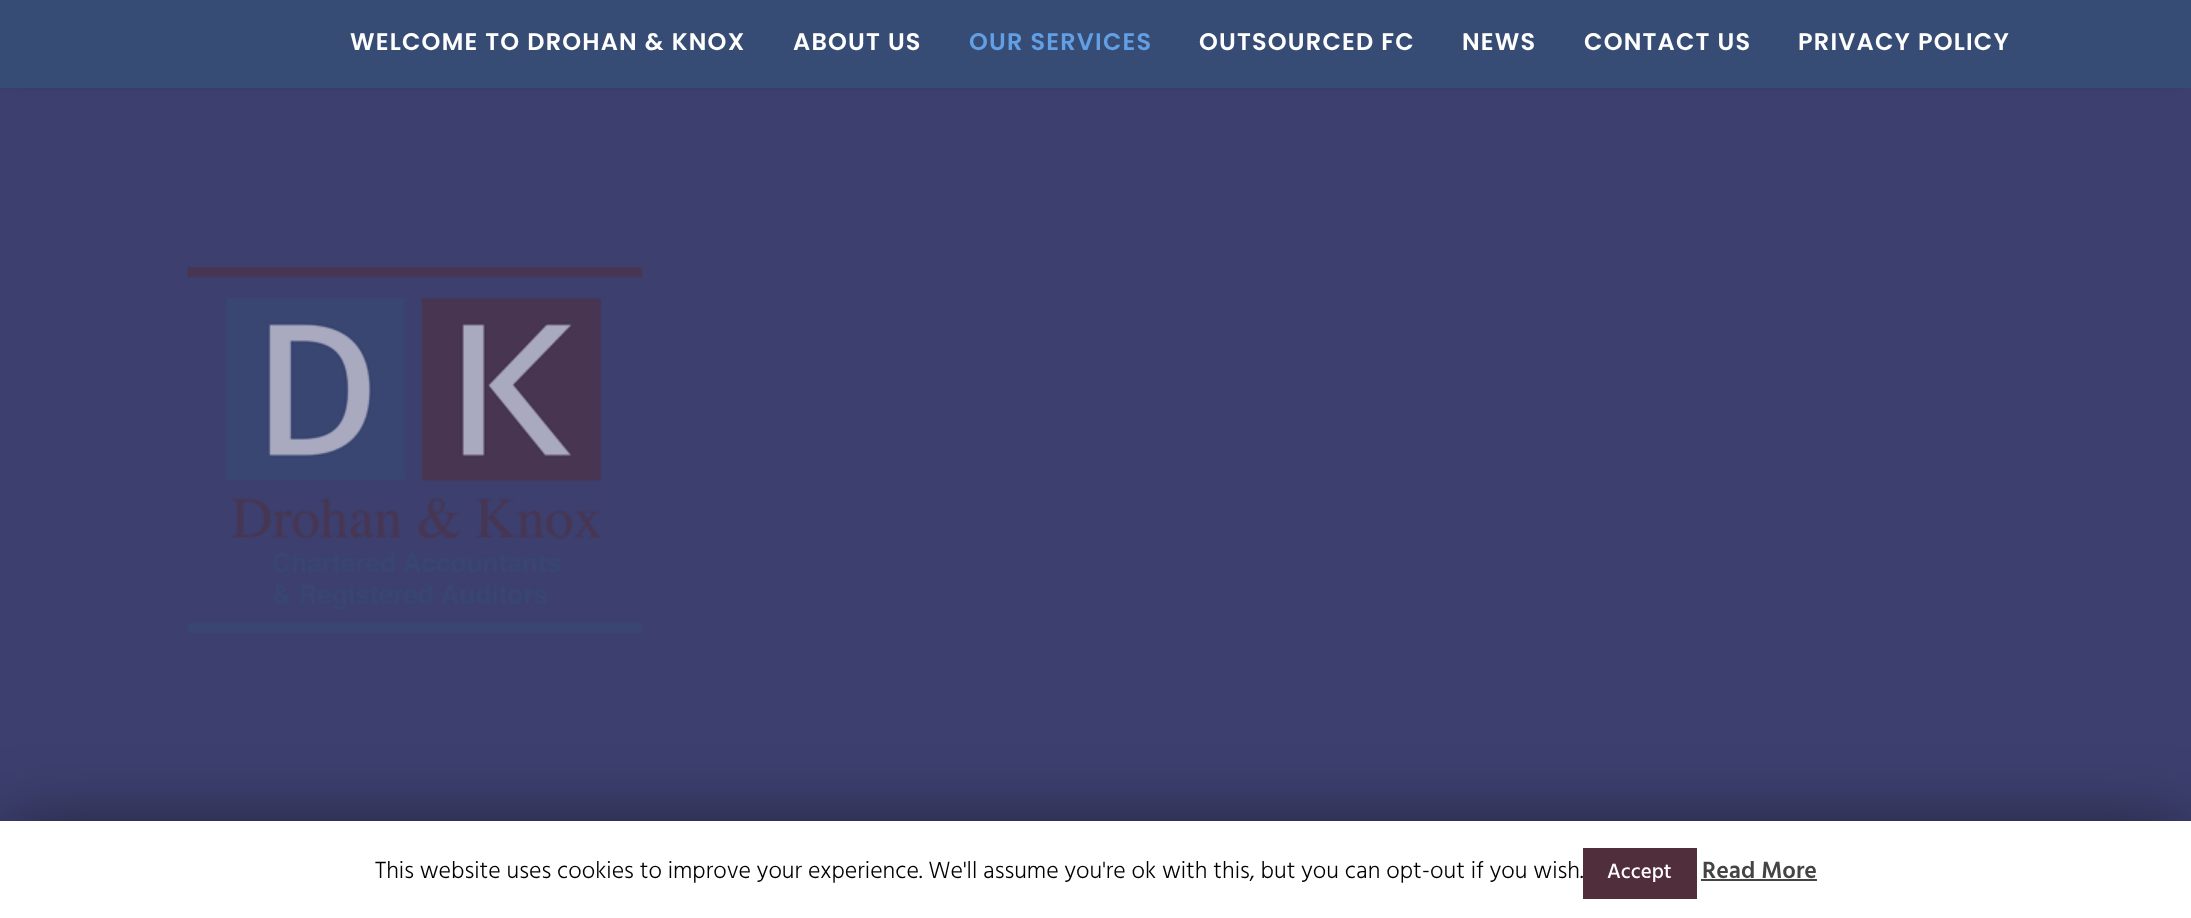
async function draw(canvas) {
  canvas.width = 2191
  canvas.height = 918
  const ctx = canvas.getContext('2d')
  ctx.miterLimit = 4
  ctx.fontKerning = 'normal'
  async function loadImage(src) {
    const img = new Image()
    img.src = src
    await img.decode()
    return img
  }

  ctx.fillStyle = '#3d406f'
  ctx.fillRect(0, 0, 2191, 918)
  ctx.fillStyle = '#00000099'
  ctx.filter = 'blur(7.5px)'
  ctx.beginPath()
  ctx.rect(12, 21, 2166, 57)
  ctx.fill()
  ctx.filter = 'none'
  ctx.fillStyle = '#374c75'
  ctx.fillRect(0, 0, 2191, 88)
  ctx.letterSpacing = '1.2px'
  ctx.font = '600 24px Poppins'
  ctx.fillStyle = '#fff'
  ctx.fillText('WELCOME TO DROHAN & KNOX', 350, 50)
  ctx.fillText('ABOUT US', 793, 50)
  ctx.fillStyle = '#629fe5'
  ctx.fillText('OUR SERVICES', 969, 50)
  ctx.fillStyle = '#fff'
  ctx.fillText('OUTSOURCED FC', 1199, 50)
  ctx.fillText('NEWS', 1462, 50)
  ctx.fillText('CONTACT US', 1584, 50)
  ctx.fillText('PRIVACY POLICY', 1798, 50)
  ctx.drawImage(await loadImage('image0.png'), 187, 267, 456, 366)
  ctx.fillStyle = '#00000080'
  ctx.filter = 'blur(37.5px)'
  ctx.beginPath()
  ctx.rect(0, 828, 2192, 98)
  ctx.fill()
  ctx.filter = 'none'
  ctx.fillStyle = '#fff'
  ctx.fillRect(0, 821, 2191, 97)
  ctx.letterSpacing = '0px'
  ctx.font = '300 24px Hind'
  ctx.fillStyle = '#000'
  ctx.fillText('This website uses cookies to improve your experience. We\'ll assume you\'re ok with this, but you can opt-out if you wish.', 375, 878)
  ctx.fillStyle = '#502e3c'
  ctx.fillRect(1583, 848, 114, 51)
  ctx.font = '500 21px Hind'
  ctx.fillStyle = '#fff'
  ctx.fillText('Accept', 1607, 878)
  ctx.font = '600 24px Hind'
  ctx.fillStyle = '#444'
  ctx.fillText('Read More', 1702, 878)
  ctx.fillRect(1701, 879, 116, 2)
}

draw(document.querySelector('canvas'))
